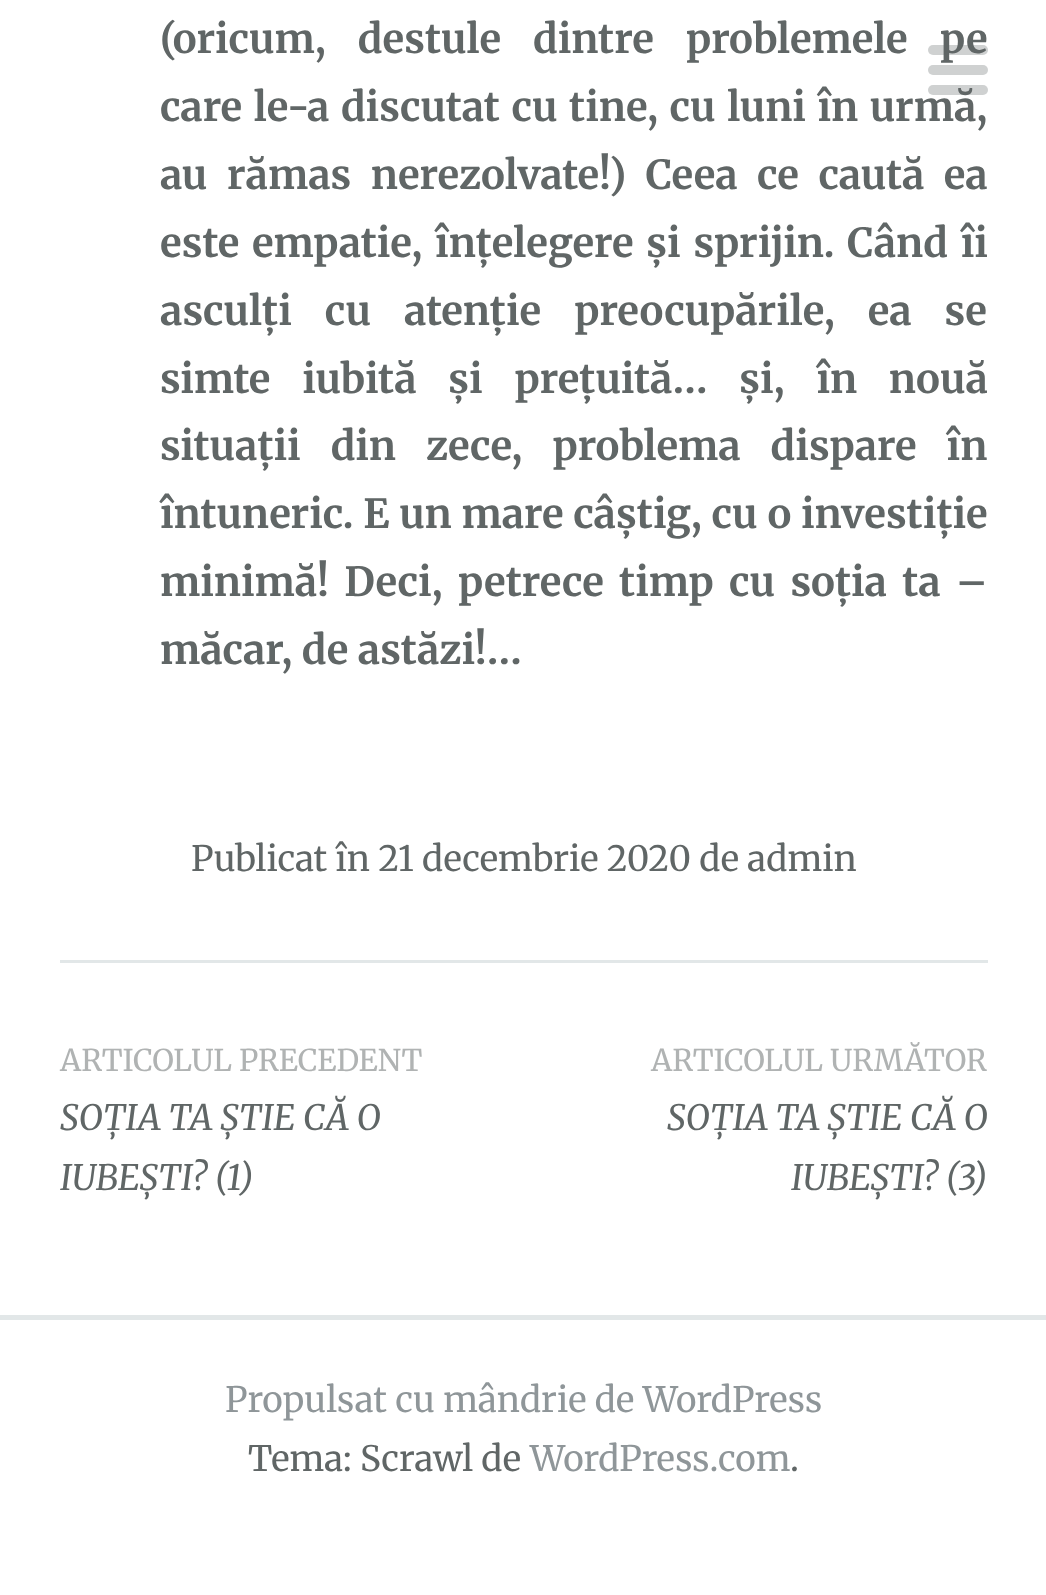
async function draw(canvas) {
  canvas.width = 1046
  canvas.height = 1595
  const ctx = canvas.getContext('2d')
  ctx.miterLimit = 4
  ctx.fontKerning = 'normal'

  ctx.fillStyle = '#fff'
  ctx.fillRect(0, 0, 1046, 1595)
  ctx.wordSpacing = '22.5px'
  ctx.font = 'bold 40px Merriweather'
  ctx.fillStyle = '#606666'
  ctx.fillText('(oricum, destule dintre problemele pe', 160, 53)
  ctx.wordSpacing = '2px'
  ctx.fillText('care le-a discutat cu tine, cu luni în urmă,', 160, 121)
  ctx.wordSpacing = '10px'
  ctx.fillText('au rămas nerezolvate!) Ceea ce caută ea', 160, 189)
  ctx.wordSpacing = '3.25px'
  ctx.fillText('este empatie, înțelegere și sprijin. Când îi', 160, 257)
  ctx.wordSpacing = '23.5px'
  ctx.fillText('asculți cu atenție preocupările, ea se', 160, 325)
  ctx.wordSpacing = '22.25px'
  ctx.fillText('simte iubită și prețuită… și, în nouă', 160, 393)
  ctx.wordSpacing = '20.5px'
  ctx.fillText('situații din zece, problema dispare în', 160, 460)
  ctx.wordSpacing = '0.25px'
  ctx.fillText('întuneric. E un mare câștig, cu o investiție', 160, 528)
  ctx.wordSpacing = '5.75px'
  ctx.fillText('minimă! Deci, petrece timp cu soția ta –', 160, 596)
  ctx.wordSpacing = '0px'
  ctx.fillText('măcar, de astăzi!…', 160, 664)
  ctx.font = '35px Merriweather'
  ctx.fillText('Publicat în 21 decembrie 2020 de admin', 191, 871)
  ctx.fillStyle = '#e2e7e8'
  ctx.fillRect(60, 960, 928, 3)
  ctx.font = '30px Merriweather'
  ctx.fillStyle = '#b0b3b3'
  ctx.fillText('ARTICOLUL PRECEDENT', 60, 1071)
  ctx.font = 'italic 35px Merriweather'
  ctx.fillStyle = '#606666'
  ctx.fillText('SOȚIA TA ȘTIE CĂ O', 60, 1130)
  ctx.fillText('IUBEȘTI? (1)', 60, 1190)
  ctx.font = '30px Merriweather'
  ctx.fillStyle = '#b0b3b3'
  ctx.fillText('ARTICOLUL URMĂTOR', 651, 1071)
  ctx.font = 'italic 35px Merriweather'
  ctx.fillStyle = '#606666'
  ctx.fillText('SOȚIA TA ȘTIE CĂ O', 667, 1130)
  ctx.fillText('IUBEȘTI? (3)', 791, 1190)
  ctx.fillStyle = '#e2e7e8'
  ctx.fillRect(0, 1315, 1046, 5)
  ctx.font = '35px Merriweather'
  ctx.fillStyle = '#8f9699'
  ctx.fillText('Propulsat cu mândrie de WordPress', 225, 1412)
  ctx.fillStyle = '#606666'
  ctx.fillText('Tema: Scrawl de', 248, 1471)
  ctx.fillStyle = '#8f9699'
  ctx.fillText('WordPress.com', 530, 1471)
  ctx.fillStyle = '#606666'
  ctx.fillText('.', 790, 1471)
  ctx.fillStyle = '#cfd1d1'
  ctx.beginPath()
  ctx.roundRect(928, 65, 60, 10, 5)
  ctx.fill()
  ctx.fillStyle = '#6066664d'
  ctx.beginPath()
  ctx.roundRect(928, 45, 60, 10, 5)
  ctx.fill()
  ctx.beginPath()
  ctx.roundRect(928, 85, 60, 10, 5)
  ctx.fill()
}

draw(document.querySelector('canvas'))
